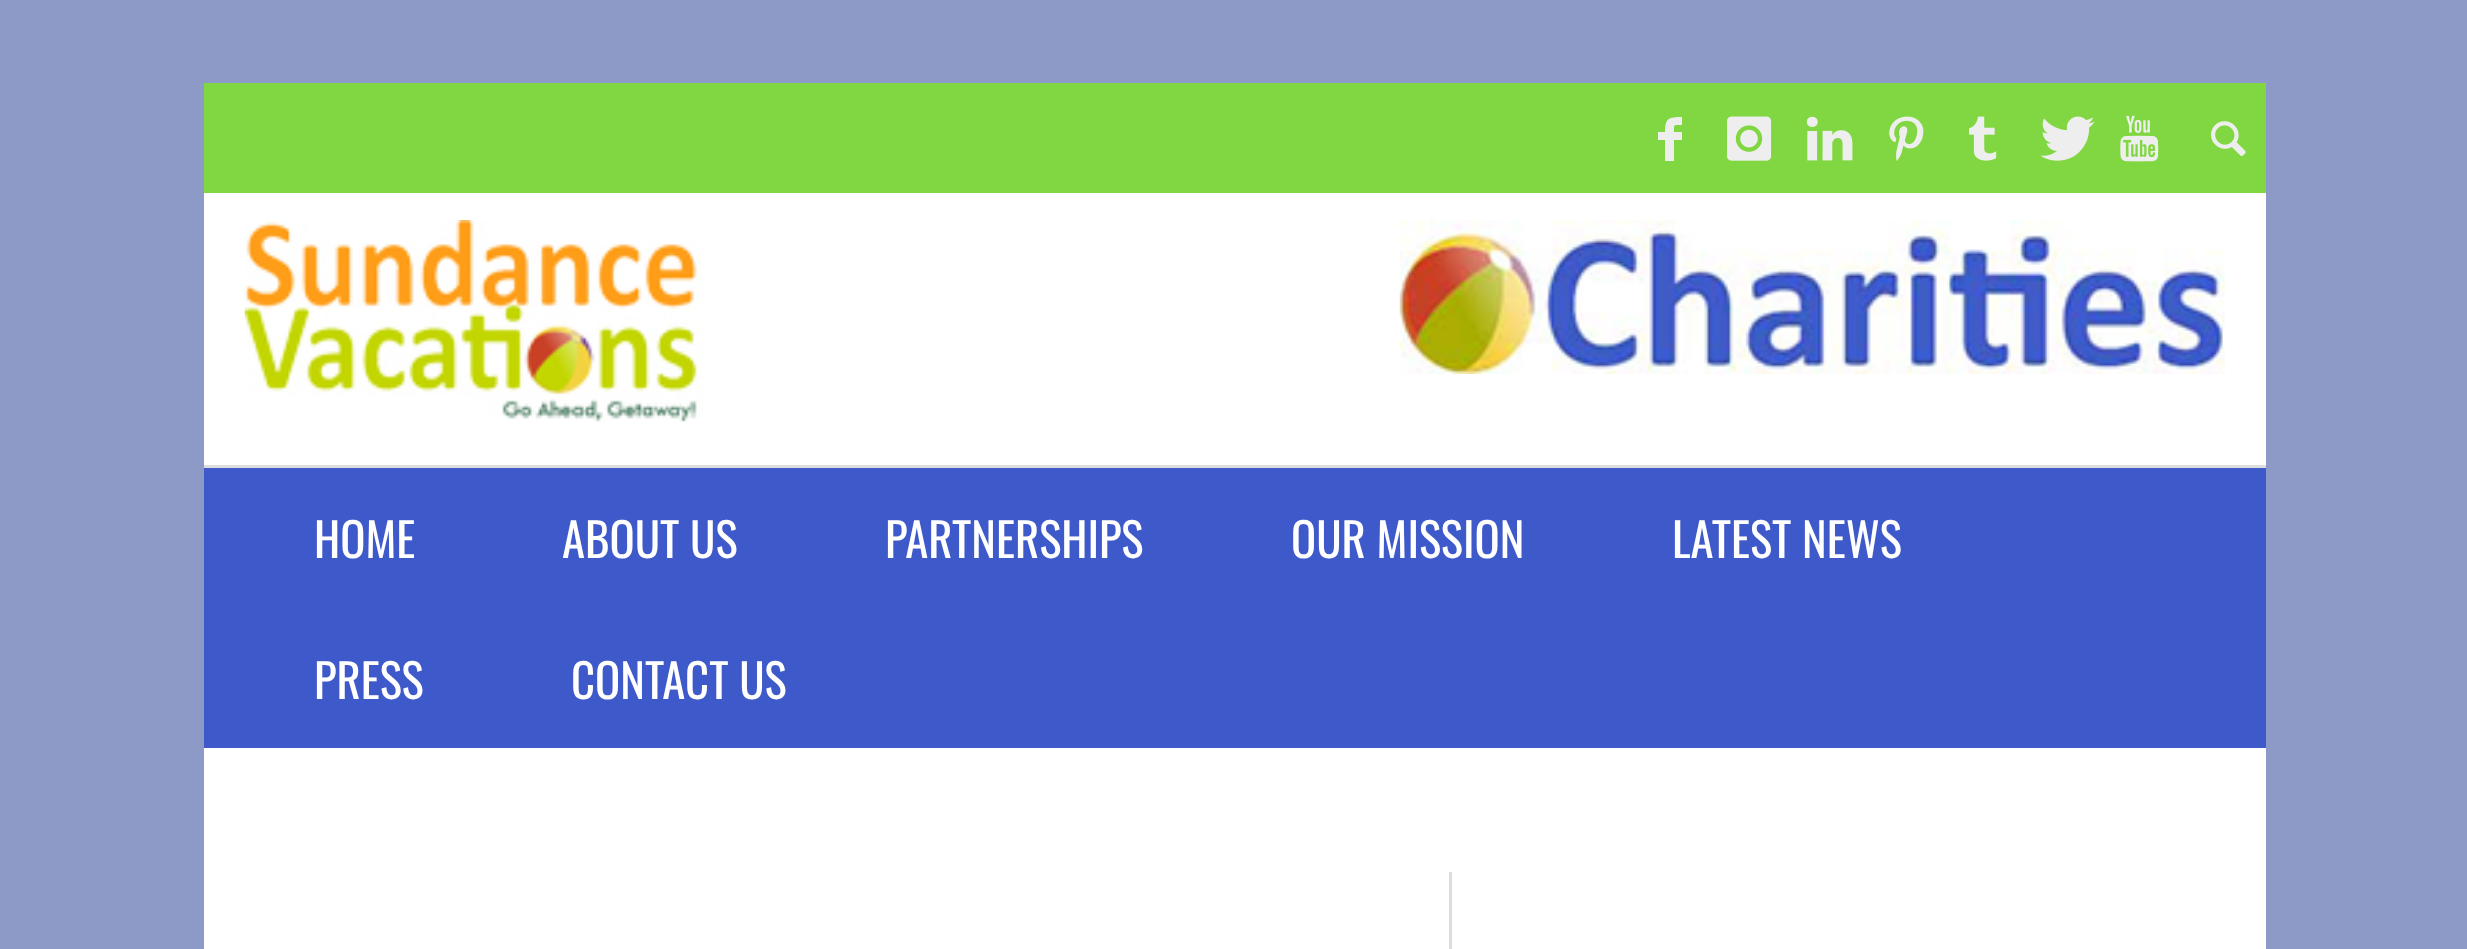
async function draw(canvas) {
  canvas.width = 2467
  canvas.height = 949
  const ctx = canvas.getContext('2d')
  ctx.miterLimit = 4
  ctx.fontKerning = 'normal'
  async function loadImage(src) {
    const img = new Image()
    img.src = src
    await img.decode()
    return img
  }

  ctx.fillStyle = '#8d99c6'
  ctx.fillRect(0, 0, 2467, 949)
  ctx.fillStyle = '#fff'
  ctx.fillRect(204, 193, 2062, 756)
  ctx.fillStyle = '#81d742'
  ctx.fillRect(204, 83, 2062, 110)
  ctx.fillStyle = '#eee'
  ctx.beginPath()
  ctx.moveTo(1658, 140)
  ctx.lineTo(1658, 132)
  ctx.lineTo(1665, 132)
  ctx.bezierCurveTo(1665, 118, 1669, 117, 1682, 117)
  ctx.lineTo(1682, 125)
  ctx.bezierCurveTo(1673, 125, 1674, 124, 1674, 132)
  ctx.lineTo(1682, 132)
  ctx.lineTo(1682, 140)
  ctx.lineTo(1674, 140)
  ctx.lineTo(1674, 161)
  ctx.lineTo(1665, 161)
  ctx.lineTo(1665, 140)
  ctx.closePath()
  ctx.fill()
  ctx.drawImage(await loadImage('image0.png'), 1727, 116, 45, 45)
  ctx.drawImage(await loadImage('image1.png'), 1806, 116, 47, 45)
  ctx.drawImage(await loadImage('image2.png'), 1889, 116, 35, 45)
  ctx.drawImage(await loadImage('image3.png'), 1969, 116, 28, 45)
  ctx.drawImage(await loadImage('image4.png'), 2040, 116, 55, 45)
  ctx.drawImage(await loadImage('image5.png'), 2120, 115, 39, 47)
  ctx.drawImage(await loadImage('image6.png'), 2211, 121, 35, 35)
  ctx.fillStyle = '#ddd'
  ctx.fillRect(204, 465, 2062, 3)
  ctx.drawImage(await loadImage('image7.png'), 244, 220, 459, 202)
  ctx.drawImage(await loadImage('image8.png'), 1399, 220, 826, 154)
  ctx.fillStyle = '#3e59ca'
  ctx.fillRect(204, 468, 2062, 280)
  ctx.font = '46.75px Oswald'
  ctx.fillStyle = '#fff'
  ctx.fillText('HOME', 314, 558)
  ctx.fillText('ABOUT US', 562, 558)
  ctx.fillText('PARTNERSHIPS', 885, 558)
  ctx.fillText('OUR MISSION', 1291, 558)
  ctx.fillText('LATEST NEWS', 1672, 558)
  ctx.fillText('PRESS', 314, 699)
  ctx.fillText('CONTACT US', 571, 699)
  ctx.fillStyle = '#ddd'
  ctx.fillRect(1449, 872, 3, 77)
}

draw(document.querySelector('canvas'))
